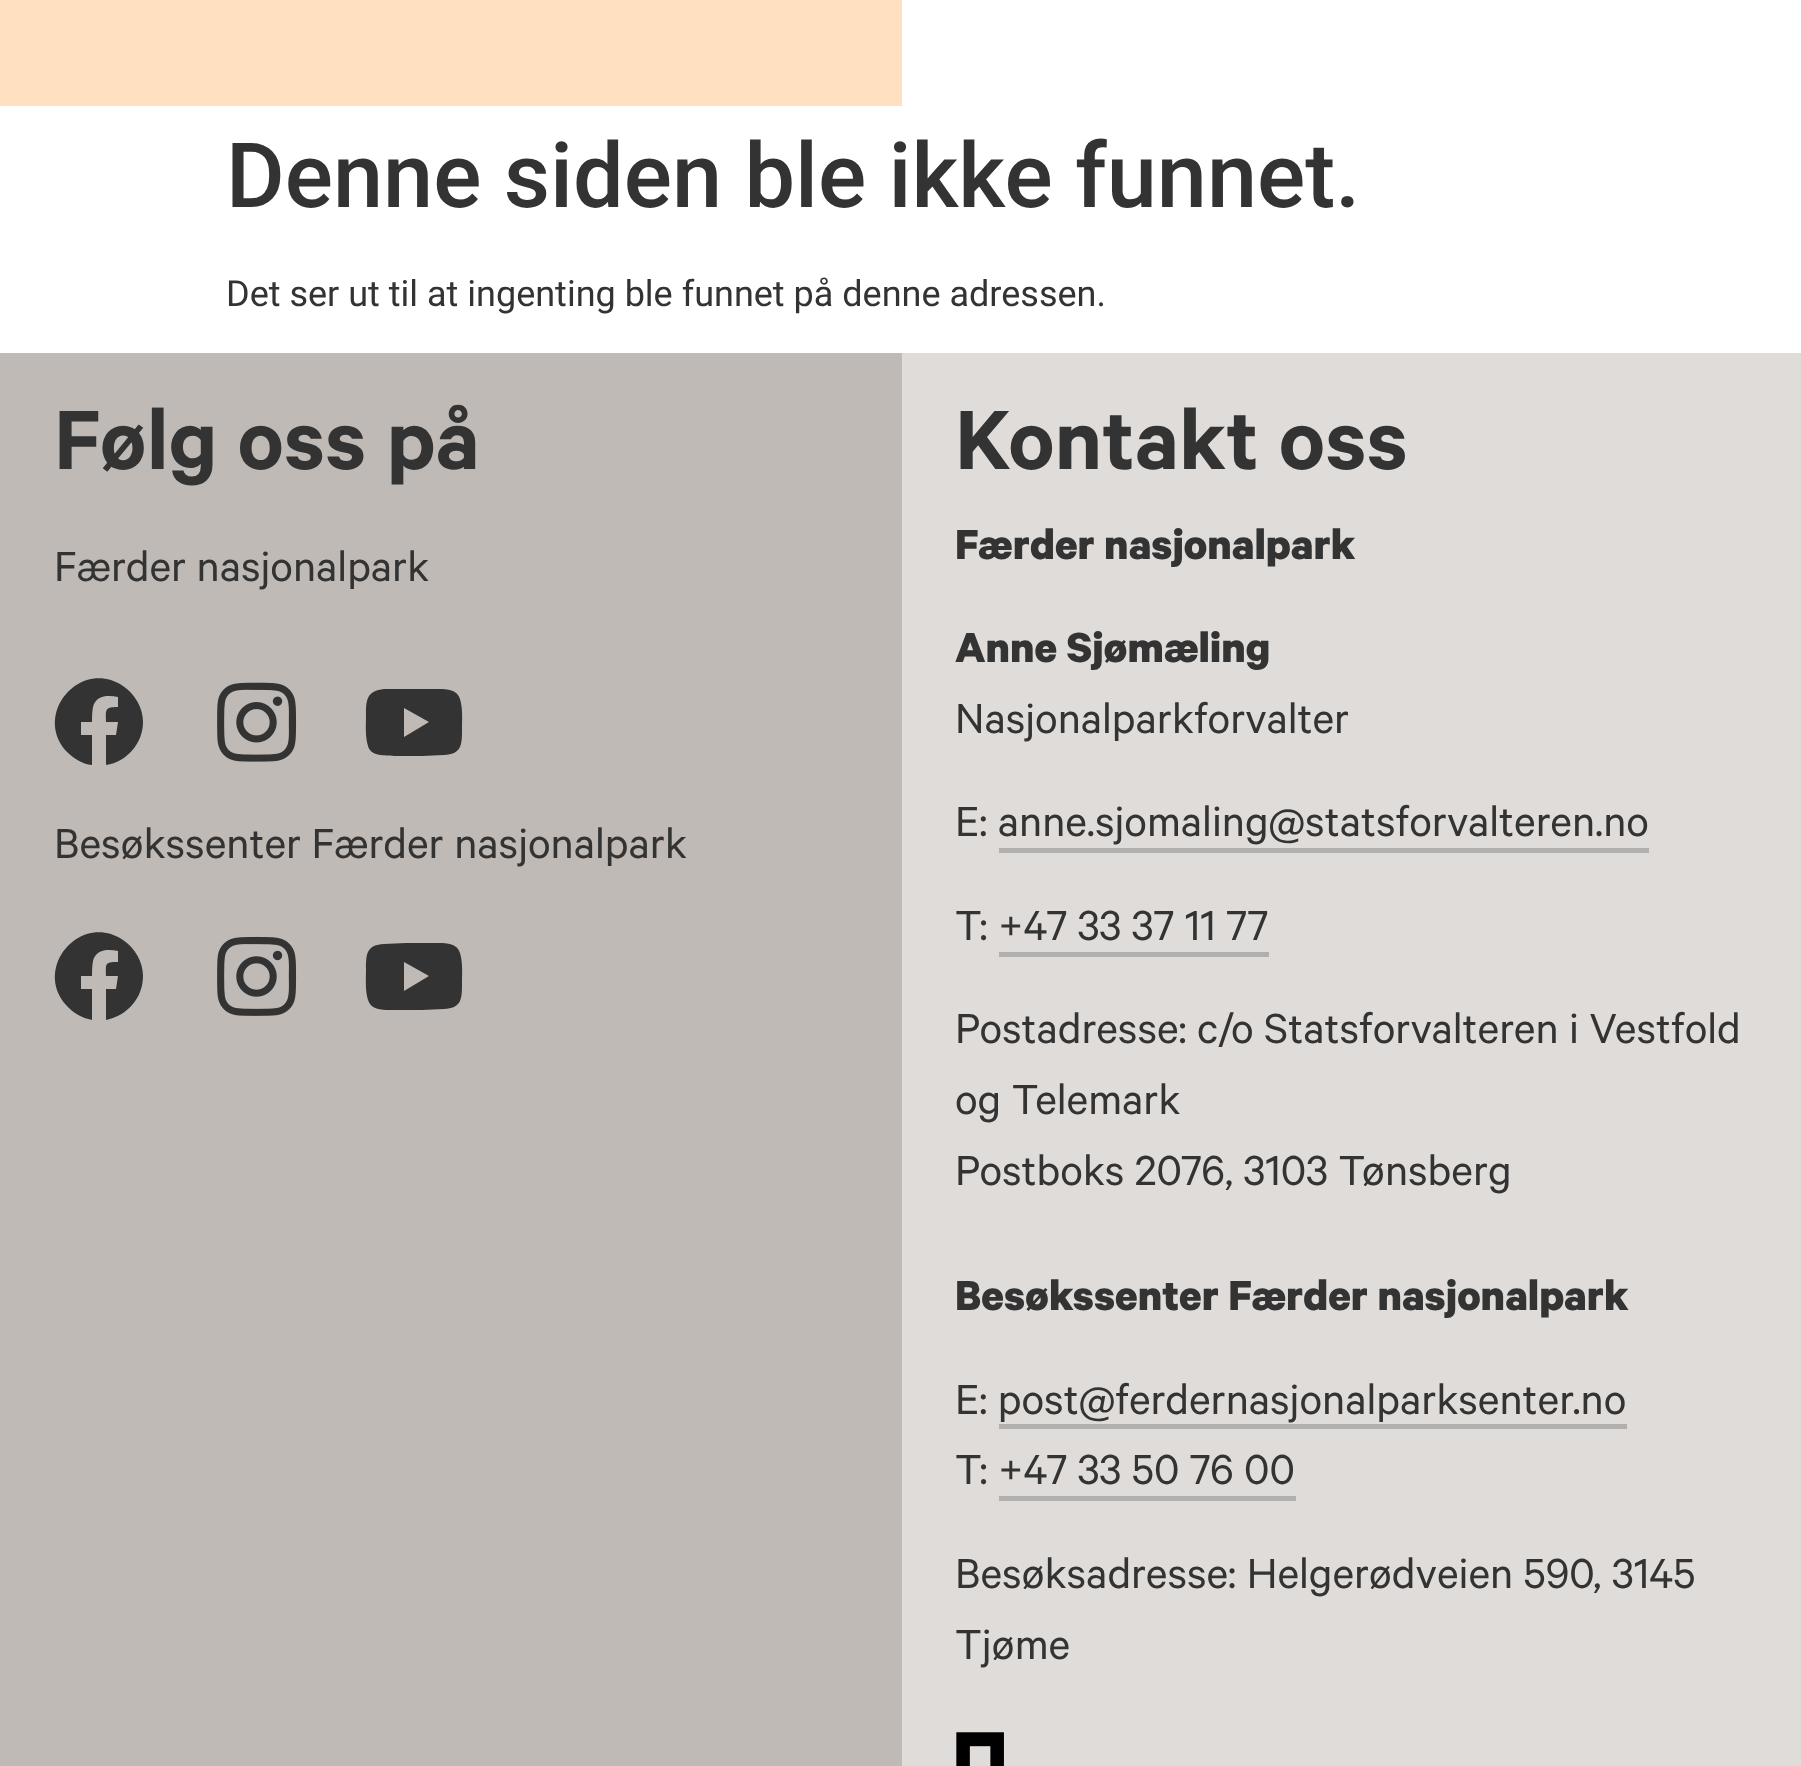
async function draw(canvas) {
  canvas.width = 1801
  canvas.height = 1766
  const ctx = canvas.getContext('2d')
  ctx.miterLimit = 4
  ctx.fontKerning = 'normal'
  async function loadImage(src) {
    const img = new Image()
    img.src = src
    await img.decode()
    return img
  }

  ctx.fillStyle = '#fff'
  ctx.fillRect(0, 0, 1801, 1766)
  ctx.fillStyle = '#ffe1c2'
  ctx.fillRect(0, 0, 902, 106)
  ctx.font = '500 90px Roboto'
  ctx.fillStyle = '#333'
  ctx.fillText('Denne siden ble ikke funnet.', 226, 207)
  ctx.font = '36px Roboto'
  ctx.fillText('Det ser ut til at ingenting ble funnet på denne adressen.', 226, 306)
  ctx.fillStyle = '#bfbab6'
  ctx.fillRect(0, 353, 902, 1413)
  ctx.font = '600 94.5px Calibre'
  ctx.fillStyle = '#333'
  ctx.fillText('Følg oss på', 54, 469)
  ctx.font = '47.25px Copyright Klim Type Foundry'
  ctx.fillText('Færder nasjonalpark', 54, 581)
  ctx.beginPath()
  ctx.moveTo(143, 722)
  ctx.bezierCurveTo(143, 743, 127, 762, 106, 765)
  ctx.lineTo(106, 735)
  ctx.lineTo(116, 735)
  ctx.lineTo(118, 722)
  ctx.lineTo(106, 722)
  ctx.bezierCurveTo(106, 710, 104, 707, 118, 707)
  ctx.lineTo(118, 697)
  ctx.bezierCurveTo(108, 695, 96, 695, 93, 707)
  ctx.bezierCurveTo(92, 712, 92, 717, 92, 722)
  ctx.lineTo(81, 722)
  ctx.lineTo(81, 735)
  ctx.lineTo(92, 735)
  ctx.lineTo(92, 765)
  ctx.bezierCurveTo(82, 764, 73, 758, 66, 751)
  ctx.bezierCurveTo(33, 713, 81, 658, 123, 686)
  ctx.bezierCurveTo(135, 694, 143, 708, 143, 722)
  ctx.closePath()
  ctx.fill()
  ctx.drawImage(await loadImage('image0.png'), 217, 682, 80, 80)
  ctx.beginPath()
  ctx.moveTo(460, 699)
  ctx.bezierCurveTo(463, 709, 462, 720, 462, 730)
  ctx.bezierCurveTo(462, 746, 461, 754, 444, 755)
  ctx.lineTo(422, 756)
  ctx.lineTo(394, 756)
  ctx.bezierCurveTo(385, 755, 371, 757, 368, 746)
  ctx.bezierCurveTo(365, 736, 366, 725, 366, 715)
  ctx.bezierCurveTo(366, 699, 367, 691, 384, 689)
  ctx.lineTo(406, 689)
  ctx.lineTo(434, 689)
  ctx.bezierCurveTo(443, 689, 457, 688, 460, 699)
  ctx.closePath()
  ctx.moveTo(404, 737)
  ctx.lineTo(429, 722)
  ctx.lineTo(404, 708)
  ctx.closePath()
  ctx.fill()
  ctx.fillText('Besøkssenter Færder nasjonalpark', 54, 858)
  ctx.beginPath()
  ctx.moveTo(143, 976)
  ctx.bezierCurveTo(143, 998, 127, 1016, 106, 1020)
  ctx.lineTo(106, 989)
  ctx.lineTo(116, 989)
  ctx.lineTo(118, 976)
  ctx.lineTo(106, 976)
  ctx.bezierCurveTo(106, 964, 104, 962, 118, 962)
  ctx.lineTo(118, 951)
  ctx.bezierCurveTo(108, 949, 96, 949, 93, 961)
  ctx.bezierCurveTo(92, 966, 92, 972, 92, 976)
  ctx.lineTo(81, 976)
  ctx.lineTo(81, 989)
  ctx.lineTo(92, 989)
  ctx.lineTo(92, 1020)
  ctx.bezierCurveTo(82, 1018, 73, 1013, 66, 1005)
  ctx.bezierCurveTo(33, 967, 81, 912, 123, 940)
  ctx.bezierCurveTo(135, 948, 143, 962, 143, 976)
  ctx.closePath()
  ctx.fill()
  ctx.drawImage(await loadImage('image1.png'), 217, 936, 80, 80)
  ctx.beginPath()
  ctx.moveTo(460, 953)
  ctx.bezierCurveTo(463, 963, 462, 974, 462, 984)
  ctx.bezierCurveTo(462, 1000, 461, 1008, 444, 1009)
  ctx.lineTo(422, 1010)
  ctx.lineTo(394, 1010)
  ctx.bezierCurveTo(385, 1010, 371, 1011, 368, 1000)
  ctx.bezierCurveTo(365, 990, 366, 979, 366, 969)
  ctx.bezierCurveTo(366, 953, 367, 945, 384, 944)
  ctx.lineTo(406, 943)
  ctx.lineTo(434, 943)
  ctx.bezierCurveTo(443, 943, 457, 942, 460, 953)
  ctx.closePath()
  ctx.moveTo(404, 991)
  ctx.lineTo(429, 976)
  ctx.lineTo(404, 962)
  ctx.closePath()
  ctx.fill()
  ctx.fillStyle = '#dfdcda'
  ctx.fillRect(902, 353, 899, 1413)
  ctx.font = '600 94.5px Calibre'
  ctx.fillStyle = '#333'
  ctx.fillText('Kontakt oss', 955, 469)
  ctx.font = 'bold 47.25px Copyright Klim Type Foundry'
  ctx.fillText('Færder nasjonalpark', 955, 559)
  ctx.fillText('Anne Sjømæling', 955, 662)
  ctx.font = '47.25px Copyright Klim Type Foundry'
  ctx.fillText('Nasjonalparkforvalter', 955, 733)
  ctx.fillText('E: anne.sjomaling@statsforvalteren.no', 955, 836)
  ctx.fillStyle = '#b2b0ae'
  ctx.fillRect(999, 848, 650, 5)
  ctx.fillStyle = '#333'
  ctx.fillText('T: +47 33 37 11 77', 955, 940)
  ctx.fillStyle = '#b2b0ae'
  ctx.fillRect(999, 952, 270, 5)
  ctx.fillStyle = '#333'
  ctx.fillText('Postadresse: c/o Statsforvalteren i Vestfold', 955, 1043)
  ctx.fillText('og Telemark', 955, 1114)
  ctx.fillText('Postboks 2076, 3103 Tønsberg', 955, 1185)
  ctx.font = 'bold 47.25px Copyright Klim Type Foundry'
  ctx.fillText('Besøkssenter Færder nasjonalpark', 955, 1310)
  ctx.font = '47.25px Copyright Klim Type Foundry'
  ctx.fillText('E: post@ferdernasjonalparksenter.no', 955, 1414)
  ctx.fillStyle = '#b2b0ae'
  ctx.fillRect(999, 1424, 628, 5)
  ctx.fillStyle = '#333'
  ctx.fillText('T: +47 33 50 76 00', 955, 1484)
  ctx.fillStyle = '#b2b0ae'
  ctx.fillRect(999, 1496, 297, 5)
  ctx.fillStyle = '#333'
  ctx.fillText('Besøksadresse: Helgerødveien 590, 3145', 955, 1588)
  ctx.fillText('Tjøme', 955, 1659)
  ctx.drawImage(await loadImage('image2.png'), 956, 1732, 48, 34)
}

draw(document.querySelector('canvas'))
